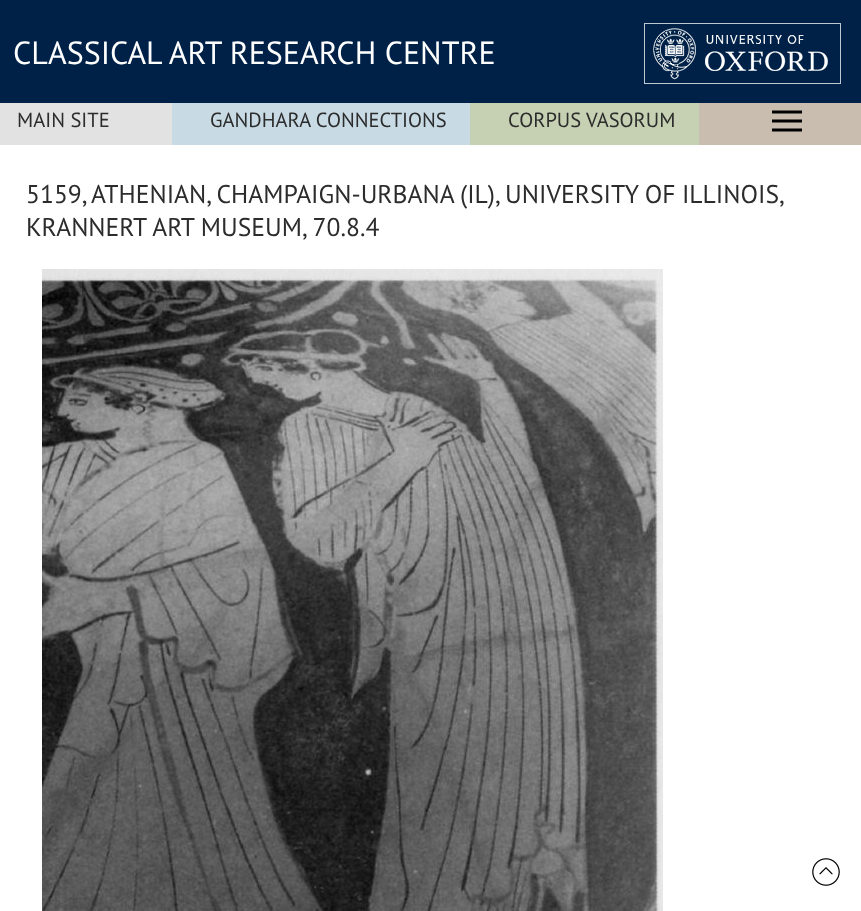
async function draw(canvas) {
  canvas.width = 861
  canvas.height = 911
  const ctx = canvas.getContext('2d')
  ctx.miterLimit = 4
  ctx.fontKerning = 'normal'
  async function loadImage(src) {
    const img = new Image()
    img.src = src
    await img.decode()
    return img
  }

  ctx.fillStyle = '#fff'
  ctx.fillRect(0, 0, 861, 911)
  ctx.fillStyle = '#002147'
  ctx.fillRect(0, 0, 861, 103)
  ctx.font = '32px PT Sans'
  ctx.fillStyle = '#fff'
  ctx.fillText('CLASSICAL ART RESEARCH CENTRE', 13, 64)
  ctx.drawImage(await loadImage('image0.png'), 644, 23, 197, 61)
  ctx.fillStyle = '#e2e2e2'
  ctx.fillRect(0, 103, 172, 42)
  ctx.font = '20.5px PT Sans'
  ctx.fillStyle = '#2c2c2c'
  ctx.fillText('MAIN SITE', 17, 127)
  ctx.fillStyle = '#c8dbe5'
  ctx.fillRect(172, 103, 298, 42)
  ctx.fillStyle = '#2c2c2c'
  ctx.fillText('GANDHARA CONNECTIONS', 210, 127)
  ctx.fillStyle = '#c5d1b2'
  ctx.fillRect(470, 103, 229, 42)
  ctx.fillStyle = '#2c2c2c'
  ctx.fillText('CORPUS VASORUM', 508, 127)
  ctx.fillStyle = '#c8bdae'
  ctx.fillRect(699, 103, 162, 42)
  ctx.drawImage(await loadImage('image1.png'), 772, 110, 30, 22)
  ctx.wordSpacing = '-0.5px'
  ctx.font = '25.6px PT Sans'
  ctx.fillStyle = '#2c2c2c'
  ctx.fillText('5159, ATHENIAN, CHAMPAIGN-URBANA (IL), UNIVERSITY OF ILLINOIS,', 26, 203)
  ctx.wordSpacing = '0px'
  ctx.fillText('KRANNERT ART MUSEUM, 70.8.4', 26, 236)
  ctx.drawImage(await loadImage('image2.png'), 42, 269, 621, 576)
  ctx.drawImage(await loadImage('image3.png'), 42, 845, 621, 66)
  ctx.drawImage(await loadImage('image4.png'), 812, 858, 28, 28)
}

draw(document.querySelector('canvas'))
